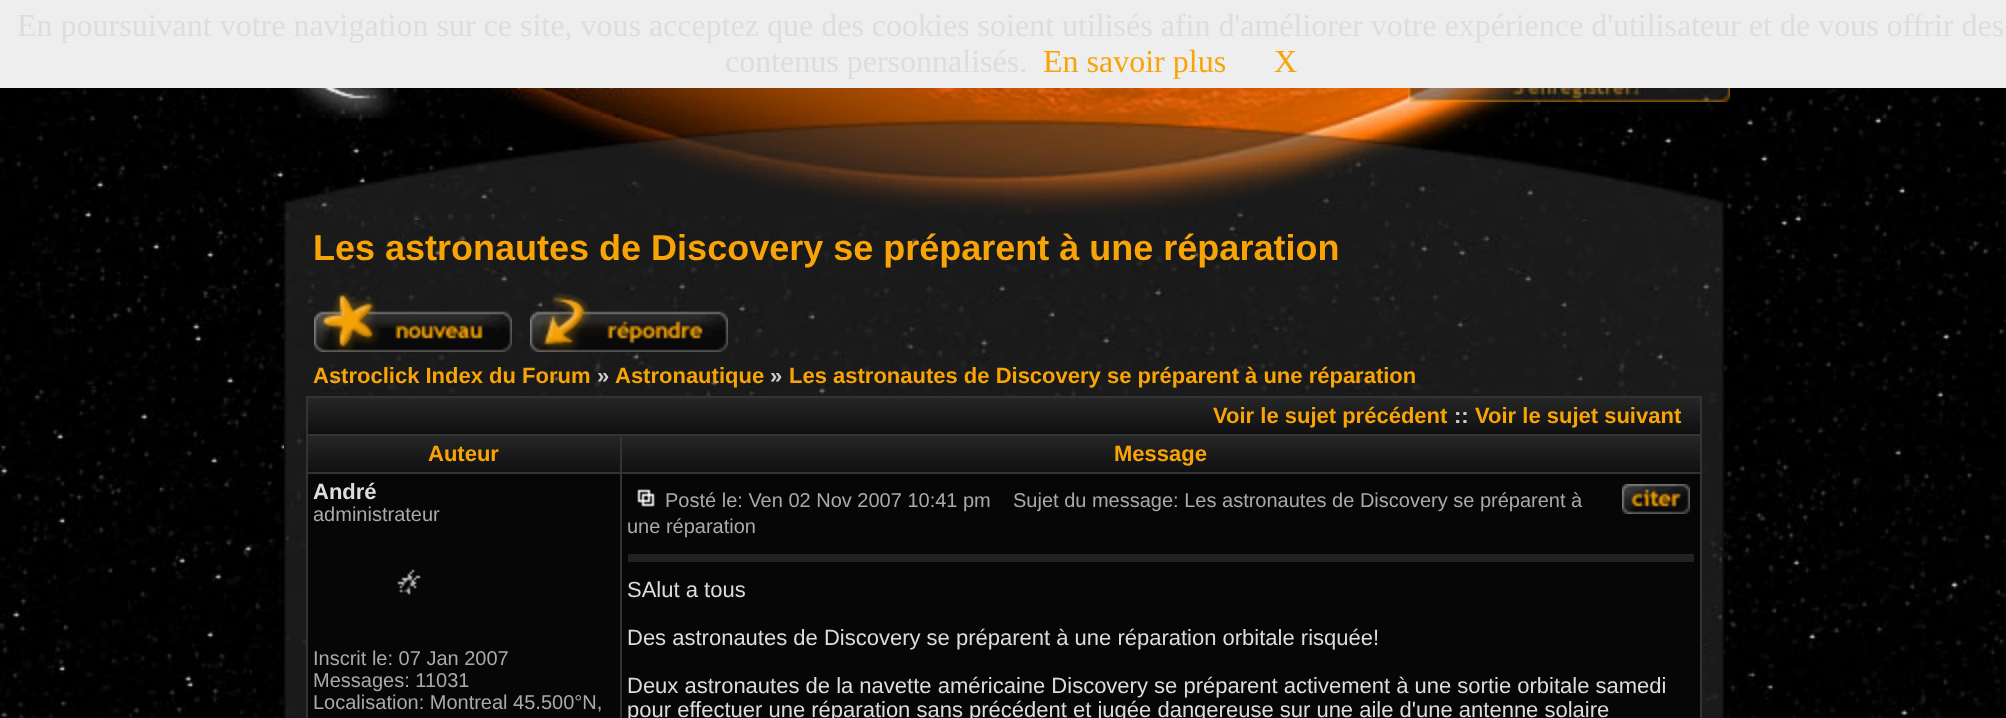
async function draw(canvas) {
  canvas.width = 2006
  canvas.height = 718
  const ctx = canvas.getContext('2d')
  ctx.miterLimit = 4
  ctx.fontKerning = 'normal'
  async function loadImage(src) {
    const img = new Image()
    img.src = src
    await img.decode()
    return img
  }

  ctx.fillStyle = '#fff'
  ctx.fillRect(0, 0, 2006, 718)
  ctx.drawImage(await loadImage('image0.png'), 0, 88, 2006, 630)
  ctx.fillStyle = '#eee'
  ctx.fillRect(0, 0, 2006, 88)
  ctx.font = '32px Liberation Serif'
  ctx.fillStyle = '#ddd'
  ctx.fillText('En poursuivant votre navigation sur ce site, vous acceptez que des cookies soient utilisés afin d\'améliorer votre expérience d\'utilisateur et de vous offrir des', 17, 36)
  ctx.fillText('contenus personnalisés.', 725, 72)
  ctx.fillStyle = '#f8a406'
  ctx.fillText('En savoir plus', 1043, 72)
  ctx.fillText('X', 1274, 72)
  ctx.drawImage(await loadImage('image1.png'), 254, 88, 1500, 134)
  ctx.drawImage(await loadImage('image2.png'), 263, 88, 497, 30)
  ctx.drawImage(await loadImage('image3.png'), 1408, 88, 322, 14)
  ctx.drawImage(await loadImage('image4.png'), 254, 118, 1500, 102)
  ctx.drawImage(await loadImage('image5.png'), 286, 220, 1436, 498)
  ctx.fillStyle = '#0f0f0f'
  ctx.fillRect(1722, 220, 2, 498)
  ctx.fillRect(284, 220, 2, 498)
  ctx.font = 'bold 36px Liberation Sans'
  ctx.fillStyle = '#f8a406'
  ctx.fillText('Les astronautes de Discovery se préparent à une réparation', 313, 260)
  ctx.drawImage(await loadImage('image6.png'), 314, 292, 198, 60)
  ctx.drawImage(await loadImage('image7.png'), 530, 292, 198, 60)
  ctx.font = 'bold 22px Liberation Sans'
  ctx.fillText('Astroclick Index du Forum', 313, 383)
  ctx.fillStyle = '#ccc'
  ctx.fillText('»', 597, 383)
  ctx.fillStyle = '#f8a406'
  ctx.fillText('Astronautique', 615, 383)
  ctx.fillStyle = '#ccc'
  ctx.fillText('»', 770, 383)
  ctx.fillStyle = '#f8a406'
  ctx.fillText('Les astronautes de Discovery se préparent à une réparation', 789, 383)
  ctx.fillStyle = '#333'
  ctx.fillRect(306, 396, 1396, 322)
  ctx.drawImage(await loadImage('image8.png'), 308, 398, 1392, 36)
  ctx.fillStyle = '#f8a406'
  ctx.fillText('Voir le sujet précédent', 1213, 423)
  ctx.fillStyle = '#ccc'
  ctx.fillText('::', 1454, 423)
  ctx.fillStyle = '#f8a406'
  ctx.fillText('Voir le sujet suivant', 1475, 423)
  ctx.drawImage(await loadImage('image9.png'), 308, 436, 312, 36)
  ctx.fillText('Auteur', 428, 461)
  ctx.drawImage(await loadImage('image10.png'), 622, 436, 1078, 36)
  ctx.fillText('Message', 1114, 461)
  ctx.fillStyle = '#060606'
  ctx.fillRect(308, 474, 312, 244)
  ctx.fillStyle = '#ddd'
  ctx.fillText('André', 313, 499)
  ctx.font = '20px Liberation Sans'
  ctx.fillStyle = '#aaa'
  ctx.fillText('administrateur', 313, 521)
  ctx.drawImage(await loadImage('image11.png'), 397, 569, 24, 26)
  ctx.fillText('Inscrit le: 07 Jan 2007', 313, 665)
  ctx.fillText('Messages: 11031', 313, 687)
  ctx.fillText('Localisation: Montreal 45.500°N,', 313, 709)
  ctx.fillStyle = '#060606'
  ctx.fillRect(622, 474, 1078, 244)
  ctx.drawImage(await loadImage('image12.png'), 637, 489, 18, 18)
  ctx.fillStyle = '#aaa'
  ctx.fillText('Posté le: Ven 02 Nov 2007 10:41 pm', 665, 507)
  ctx.fillText('Sujet du message: Les astronautes de Discovery se préparent à', 1013, 507)
  ctx.fillText('une réparation', 627, 533)
  ctx.drawImage(await loadImage('image13.png'), 1622, 484, 68, 30)
  ctx.fillStyle = '#222'
  ctx.fillRect(628, 554, 1066, 2)
  ctx.fillRect(1688, 554, 6, 8)
  ctx.fillRect(628, 556, 1066, 6)
  ctx.font = '22px Liberation Sans'
  ctx.fillStyle = '#ddd'
  ctx.fillText('SAlut a tous', 627, 597)
  ctx.fillText('Des astronautes de Discovery se préparent à une réparation orbitale risquée!', 627, 645)
  ctx.fillText('Deux astronautes de la navette américaine Discovery se préparent activement à une sortie orbitale samedi', 627, 693)
  ctx.fillText('pour effectuer une réparation sans précédent et jugée dangereuse sur une aile d\'une antenne solaire', 627, 717)
}

draw(document.querySelector('canvas'))
